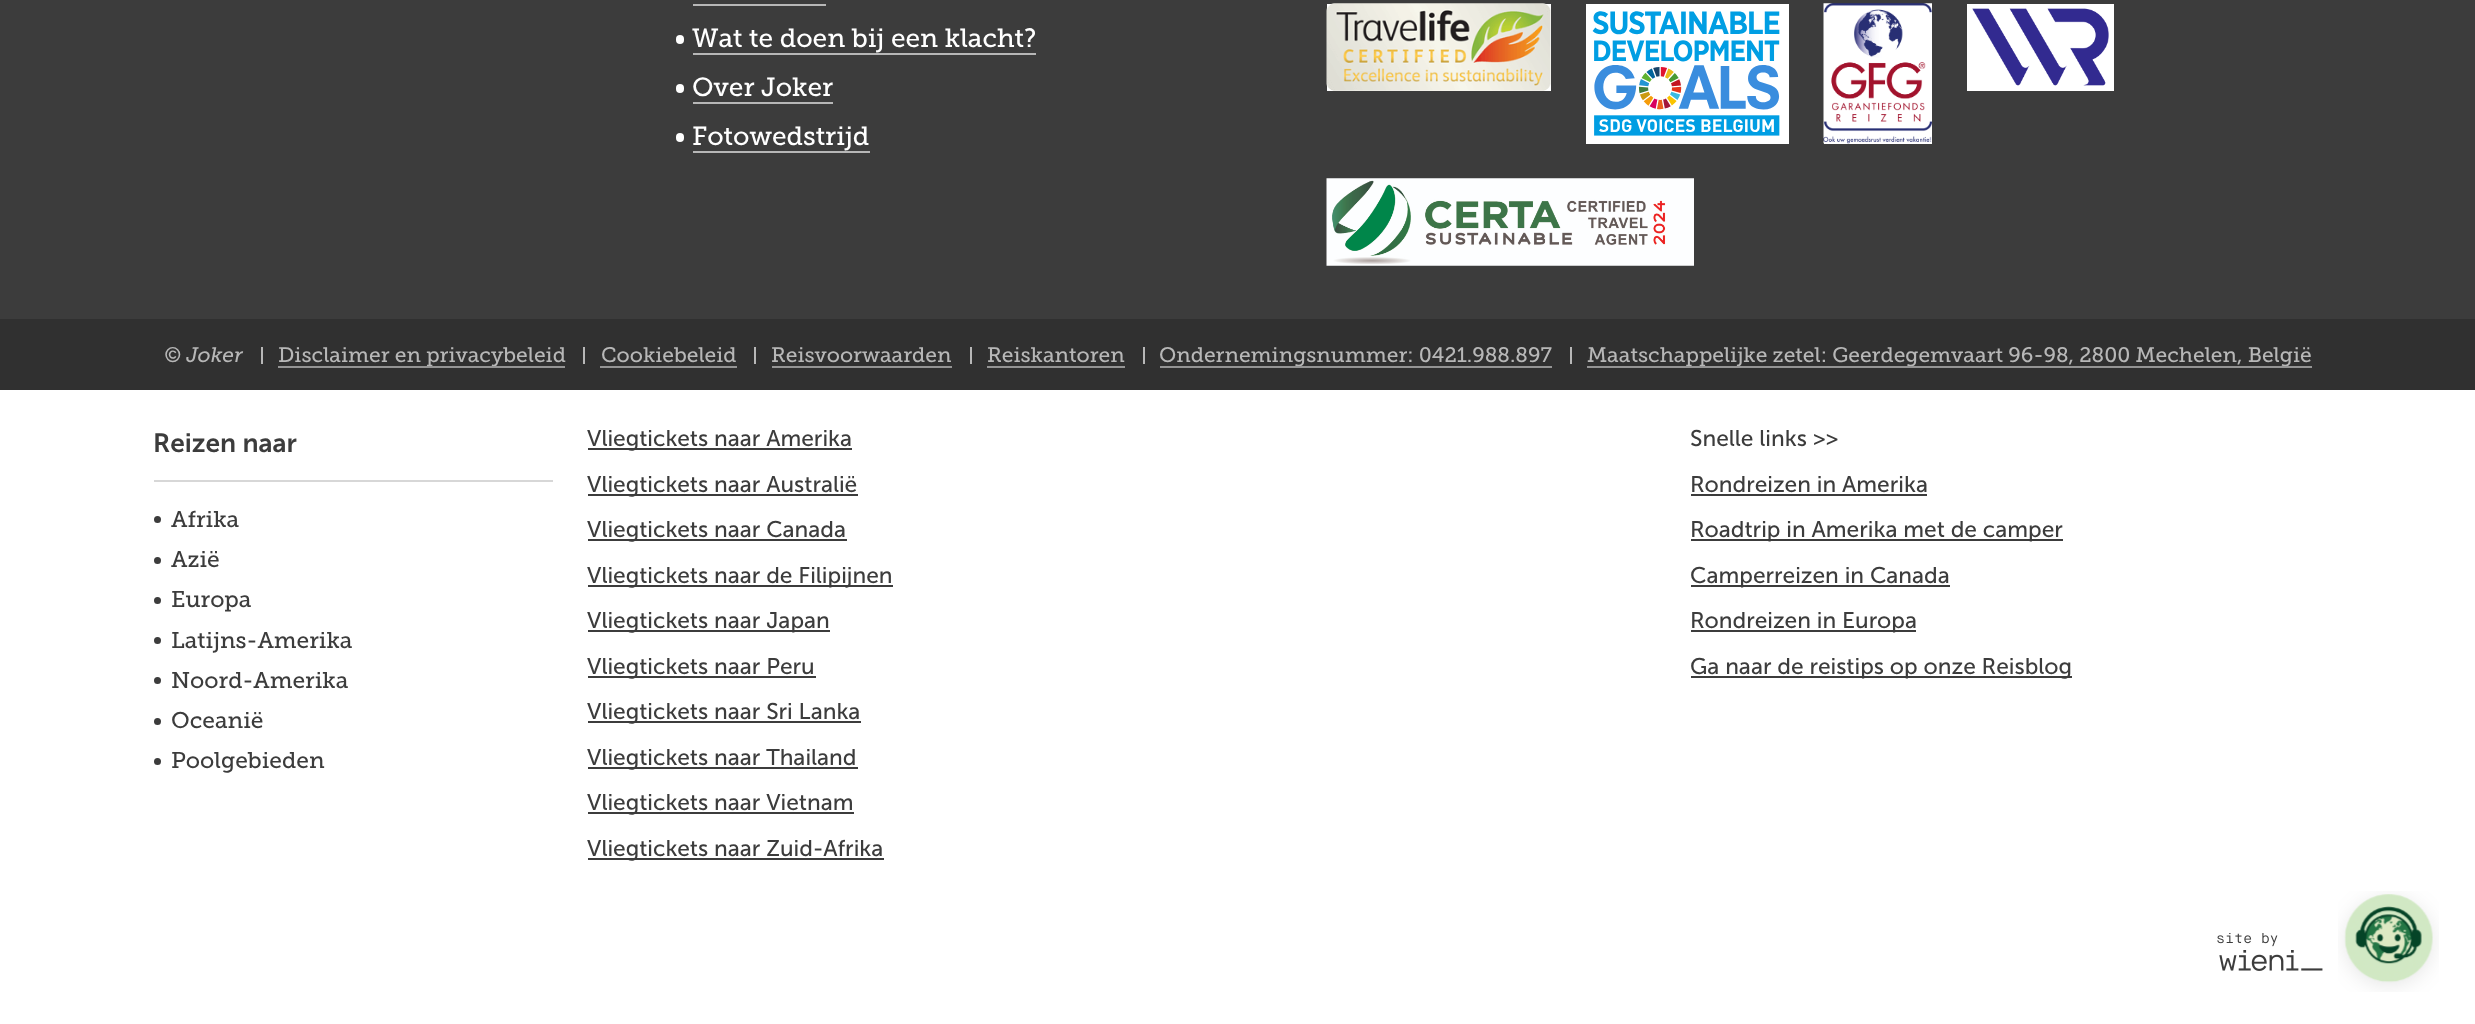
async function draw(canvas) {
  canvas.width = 2475
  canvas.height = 1024
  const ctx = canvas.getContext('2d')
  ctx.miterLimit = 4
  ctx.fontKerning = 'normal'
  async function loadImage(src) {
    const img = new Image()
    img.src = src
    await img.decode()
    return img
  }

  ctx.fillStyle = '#3c3c3c'
  ctx.fillRect(0, 0, 2475, 1024)
  ctx.fillStyle = '#b7b7b7'
  ctx.fillRect(693, 4, 133, 2)
  ctx.fillStyle = '#fff'
  ctx.beginPath()
  ctx.roundRect(676, 35, 8, 9, 4)
  ctx.fill()
  ctx.font = '26.25px "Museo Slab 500"'
  ctx.fillText('Wat te doen bij een klacht?', 692, 47)
  ctx.fillStyle = '#b7b7b7'
  ctx.fillRect(693, 53, 343, 2)
  ctx.fillStyle = '#fff'
  ctx.beginPath()
  ctx.roundRect(676, 84, 8, 9, 4)
  ctx.fill()
  ctx.fillText('Over Joker', 692, 96)
  ctx.fillStyle = '#b7b7b7'
  ctx.fillRect(693, 102, 140, 2)
  ctx.fillStyle = '#fff'
  ctx.beginPath()
  ctx.roundRect(676, 133, 8, 9, 4)
  ctx.fill()
  ctx.fillText('Fotowedstrijd', 692, 145)
  ctx.fillStyle = '#b7b7b7'
  ctx.fillRect(693, 151, 177, 2)
  ctx.fillStyle = '#fff'
  ctx.fillRect(1327, 4, 224, 87)
  ctx.drawImage(await loadImage('image0.png'), 1326, 3, 225, 88)
  ctx.fillRect(1586, 4, 203, 140)
  ctx.drawImage(await loadImage('image1.png'), 1592, 11, 188, 125)
  ctx.fillRect(1824, 143, 108, 1)
  ctx.drawImage(await loadImage('image2.png'), 1823, 3, 109, 141)
  ctx.fillRect(1967, 4, 147, 87)
  ctx.drawImage(await loadImage('image3.png'), 1972, 8, 137, 78)
  ctx.drawImage(await loadImage('image4.png'), 1326, 178, 368, 88)
  ctx.fillStyle = '#303030'
  ctx.fillRect(0, 319, 2475, 71)
  ctx.fillStyle = '#b7b7b7'
  ctx.fillRect(261, 347, 2, 17)
  ctx.font = '21px "Museo Slab 500"'
  ctx.fillText('Disclaimer en privacybeleid', 278, 362)
  ctx.fillStyle = '#949494'
  ctx.fillRect(278, 366, 287, 2)
  ctx.fillStyle = '#b7b7b7'
  ctx.fillRect(583, 347, 2, 17)
  ctx.fillText('Cookiebeleid', 601, 362)
  ctx.fillStyle = '#949494'
  ctx.fillRect(600, 366, 137, 2)
  ctx.fillStyle = '#b7b7b7'
  ctx.fillRect(754, 347, 2, 17)
  ctx.fillText('Reisvoorwaarden', 771, 362)
  ctx.fillStyle = '#949494'
  ctx.fillRect(772, 366, 180, 2)
  ctx.fillStyle = '#b7b7b7'
  ctx.fillRect(970, 347, 2, 17)
  ctx.fillText('Reiskantoren', 987, 362)
  ctx.fillStyle = '#949494'
  ctx.fillRect(987, 366, 138, 2)
  ctx.fillStyle = '#b7b7b7'
  ctx.fillRect(1143, 347, 2, 17)
  ctx.fillText('Ondernemingsnummer: 0421.988.897', 1159, 362)
  ctx.fillStyle = '#949494'
  ctx.fillRect(1160, 366, 392, 2)
  ctx.fillStyle = '#b7b7b7'
  ctx.fillRect(1570, 347, 2, 17)
  ctx.fillText('Maatschappelijke zetel: Geerdegemvaart 96-98, 2800 Mechelen, België', 1587, 362)
  ctx.fillStyle = '#949494'
  ctx.fillRect(1587, 366, 725, 2)
  ctx.fillStyle = '#fff'
  ctx.fillRect(0, 390, 2475, 634)
  ctx.fillStyle = '#d7d7d7'
  ctx.fillRect(154, 480, 399, 2)
  ctx.font = '600 26.25px "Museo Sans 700"'
  ctx.fillStyle = '#3c3c3c'
  ctx.fillText('Reizen naar', 153, 452)
  ctx.beginPath()
  ctx.arc(157.5, 519.5, 3.5, 0, 2 * Math.PI)
  ctx.fill()
  ctx.font = '22.75px "Museo Slab 500"'
  ctx.fillText('Afrika', 171, 527)
  ctx.beginPath()
  ctx.arc(157.5, 560.5, 3.5, 0, 2 * Math.PI)
  ctx.fill()
  ctx.fillText('Azië', 171, 567)
  ctx.beginPath()
  ctx.arc(157.5, 600.5, 3.5, 0, 2 * Math.PI)
  ctx.fill()
  ctx.fillText('Europa', 171, 607)
  ctx.beginPath()
  ctx.arc(157.5, 640.5, 3.5, 0, 2 * Math.PI)
  ctx.fill()
  ctx.fillText('Latijns-Amerika', 171, 648)
  ctx.beginPath()
  ctx.arc(157.5, 680.5, 3.5, 0, 2 * Math.PI)
  ctx.fill()
  ctx.fillText('Noord-Amerika', 171, 688)
  ctx.beginPath()
  ctx.arc(157.5, 721.5, 3.5, 0, 2 * Math.PI)
  ctx.fill()
  ctx.fillText('Oceanië', 171, 728)
  ctx.beginPath()
  ctx.arc(157.5, 761.5, 3.5, 0, 2 * Math.PI)
  ctx.fill()
  ctx.fillText('Poolgebieden', 171, 768)
  ctx.fillRect(588, 448, 264, 2)
  ctx.font = '22.75px "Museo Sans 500"'
  ctx.fillText('Vliegtickets naar Amerika', 587, 446)
  ctx.fillRect(588, 494, 270, 2)
  ctx.fillText('Vliegtickets naar Australië', 587, 492)
  ctx.fillRect(588, 539, 259, 2)
  ctx.fillText('Vliegtickets naar Canada', 587, 537)
  ctx.fillRect(588, 585, 305, 2)
  ctx.fillText('Vliegtickets naar de Filipijnen', 587, 583)
  ctx.fillRect(588, 630, 242, 2)
  ctx.fillText('Vliegtickets naar Japan', 587, 628)
  ctx.fillRect(588, 676, 228, 2)
  ctx.fillText('Vliegtickets naar Peru', 587, 674)
  ctx.fillRect(588, 721, 273, 2)
  ctx.fillText('Vliegtickets naar Sri Lanka', 587, 719)
  ctx.fillRect(588, 767, 270, 2)
  ctx.fillText('Vliegtickets naar Thailand', 587, 765)
  ctx.fillRect(588, 812, 266, 2)
  ctx.fillText('Vliegtickets naar Vietnam', 587, 810)
  ctx.fillRect(588, 858, 296, 2)
  ctx.fillText('Vliegtickets naar Zuid-Afrika', 587, 856)
  ctx.fillText('Snelle links >>', 1690, 446)
  ctx.fillText('Rondreizen in Amerika', 1690, 492)
  ctx.fillRect(1691, 494, 236, 2)
  ctx.fillRect(1691, 539, 372, 2)
  ctx.fillText('Roadtrip in Amerika met de camper', 1690, 537)
  ctx.fillRect(1691, 585, 259, 2)
  ctx.fillText('Camperreizen in Canada', 1690, 583)
  ctx.fillRect(1691, 630, 225, 2)
  ctx.fillText('Rondreizen in Europa', 1690, 628)
  ctx.fillRect(1691, 676, 381, 2)
  ctx.fillText('Ga naar de reistips op onze Reisblog', 1690, 674)
  ctx.drawImage(await loadImage('image5.png'), 2217, 933, 106, 38)
  ctx.font = 'italic 500 21px "Museo Slab 500"'
  ctx.fillStyle = '#b7b7b7'
  ctx.fillText('© Joker', 164, 362)
  ctx.drawImage(await loadImage('image6.png'), 2338, 891, 101, 101)
}

draw(document.querySelector('canvas'))
